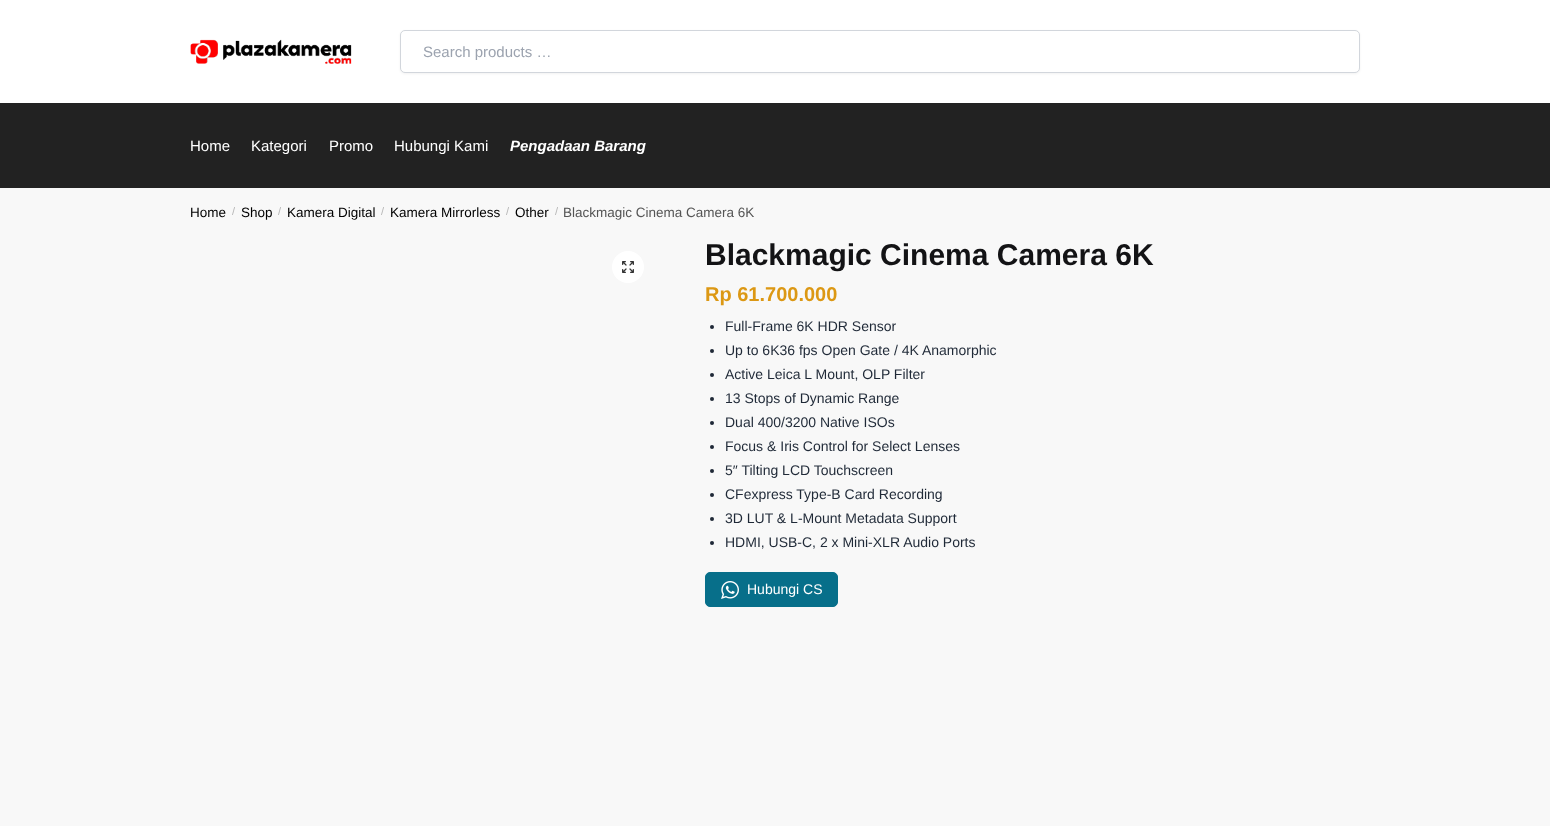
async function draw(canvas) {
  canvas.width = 1565
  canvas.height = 826
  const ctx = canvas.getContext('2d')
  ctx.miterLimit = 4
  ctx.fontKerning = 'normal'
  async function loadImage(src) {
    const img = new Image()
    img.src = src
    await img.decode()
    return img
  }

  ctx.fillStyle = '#fff'
  ctx.fillRect(0, 0, 1565, 826)
  ctx.drawImage(await loadImage('image0.png'), 190, 39, 162, 25)
  ctx.fillStyle = '#0000000d'
  ctx.filter = 'blur(1px)'
  ctx.beginPath()
  ctx.roundRect(400, 31, 960, 43, 5)
  ctx.fill()
  ctx.filter = 'none'
  ctx.fillStyle = '#fff'
  ctx.beginPath()
  ctx.roundRect(400.5, 30.5, 959, 42, 4.5)
  ctx.fill()
  ctx.strokeStyle = '#d2d6dc'
  ctx.stroke()
  ctx.font = '15px Liberation Sans'
  ctx.fillStyle = '#9ca3af'
  ctx.fillText('Search products …', 423, 57)
  ctx.fillStyle = '#222'
  ctx.fillRect(0, 103, 1550, 85)
  ctx.fillStyle = '#fff'
  ctx.fillText('Home', 190, 151)
  ctx.fillText('Kategori', 251, 151)
  ctx.fillText('Promo', 329, 151)
  ctx.fillText('Hubungi Kami', 394, 151)
  ctx.font = 'italic bold 15px Liberation Sans'
  ctx.fillText('Pengadaan Barang', 510, 151)
  ctx.fillStyle = '#f8f8f8'
  ctx.fillRect(0, 188, 1550, 638)
  ctx.font = '13.5px Liberation Sans'
  ctx.fillStyle = '#000'
  ctx.fillText('Home', 190, 217)
  ctx.font = '11px Liberation Sans'
  ctx.fillStyle = '#b7b7b7'
  ctx.fillText('/', 232, 215)
  ctx.font = '13.5px Liberation Sans'
  ctx.fillStyle = '#000'
  ctx.fillText('Shop', 241, 217)
  ctx.font = '11px Liberation Sans'
  ctx.fillStyle = '#b7b7b7'
  ctx.fillText('/', 278, 215)
  ctx.font = '13.5px Liberation Sans'
  ctx.fillStyle = '#000'
  ctx.fillText('Kamera Digital', 287, 217)
  ctx.font = '11px Liberation Sans'
  ctx.fillStyle = '#b7b7b7'
  ctx.fillText('/', 381, 215)
  ctx.font = '13.5px Liberation Sans'
  ctx.fillStyle = '#000'
  ctx.fillText('Kamera Mirrorless', 390, 217)
  ctx.font = '11px Liberation Sans'
  ctx.fillStyle = '#b7b7b7'
  ctx.fillText('/', 506, 215)
  ctx.font = '13.5px Liberation Sans'
  ctx.fillStyle = '#000'
  ctx.fillText('Other', 515, 217)
  ctx.font = '11px Liberation Sans'
  ctx.fillStyle = '#b7b7b7'
  ctx.fillText('/', 555, 215)
  ctx.font = '13.5px Liberation Sans'
  ctx.fillStyle = '#555'
  ctx.fillText('Blackmagic Cinema Camera 6K', 563, 217)
  ctx.fillStyle = '#fff'
  ctx.beginPath()
  ctx.arc(628, 267, 16, 0, 2 * Math.PI)
  ctx.fill()
  ctx.drawImage(await loadImage('image1.png'), 622, 261, 12, 12)
  ctx.font = 'bold 30px Liberation Sans'
  ctx.fillStyle = '#131315'
  ctx.fillText('Blackmagic Cinema Camera 6K', 705, 265)
  ctx.font = 'bold 20px Liberation Sans'
  ctx.fillStyle = '#dc9814'
  ctx.fillText('Rp 61.700.000', 705, 301)
  ctx.fillStyle = '#1f2937'
  ctx.beginPath()
  ctx.arc(712, 327, 2, 0, 2 * Math.PI)
  ctx.fill()
  ctx.font = '14px Liberation Sans'
  ctx.fillText('Full-Frame 6K HDR Sensor', 725, 331)
  ctx.beginPath()
  ctx.arc(712, 351, 2, 0, 2 * Math.PI)
  ctx.fill()
  ctx.fillText('Up to 6K36 fps Open Gate / 4K Anamorphic', 725, 355)
  ctx.beginPath()
  ctx.arc(712, 375, 2, 0, 2 * Math.PI)
  ctx.fill()
  ctx.fillText('Active Leica L Mount, OLP Filter', 725, 379)
  ctx.beginPath()
  ctx.arc(712, 399, 2, 0, 2 * Math.PI)
  ctx.fill()
  ctx.fillText('13 Stops of Dynamic Range', 725, 403)
  ctx.beginPath()
  ctx.arc(712, 423, 2, 0, 2 * Math.PI)
  ctx.fill()
  ctx.fillText('Dual 400/3200 Native ISOs', 725, 427)
  ctx.beginPath()
  ctx.arc(712, 447, 2, 0, 2 * Math.PI)
  ctx.fill()
  ctx.fillText('Focus & Iris Control for Select Lenses', 725, 451)
  ctx.beginPath()
  ctx.arc(712, 471, 2, 0, 2 * Math.PI)
  ctx.fill()
  ctx.fillText('5″ Tilting LCD Touchscreen', 725, 475)
  ctx.beginPath()
  ctx.arc(712, 495, 2, 0, 2 * Math.PI)
  ctx.fill()
  ctx.fillText('CFexpress Type-B Card Recording', 725, 499)
  ctx.beginPath()
  ctx.arc(712, 519, 2, 0, 2 * Math.PI)
  ctx.fill()
  ctx.fillText('3D LUT & L-Mount Metadata Support', 725, 523)
  ctx.beginPath()
  ctx.arc(712, 543, 2, 0, 2 * Math.PI)
  ctx.fill()
  ctx.fillText('HDMI, USB-C, 2 x Mini-XLR Audio Ports', 725, 547)
  ctx.fillStyle = '#076f8a'
  ctx.beginPath()
  ctx.roundRect(705.5, 572.5, 132, 34, 4.5)
  ctx.fill()
  ctx.strokeStyle = '#076f8a'
  ctx.stroke()
  ctx.drawImage(await loadImage('image2.png'), 721, 581, 18, 18)
  ctx.fillStyle = '#fff'
  ctx.fillText('Hubungi CS', 747, 594)
}

draw(document.querySelector('canvas'))
